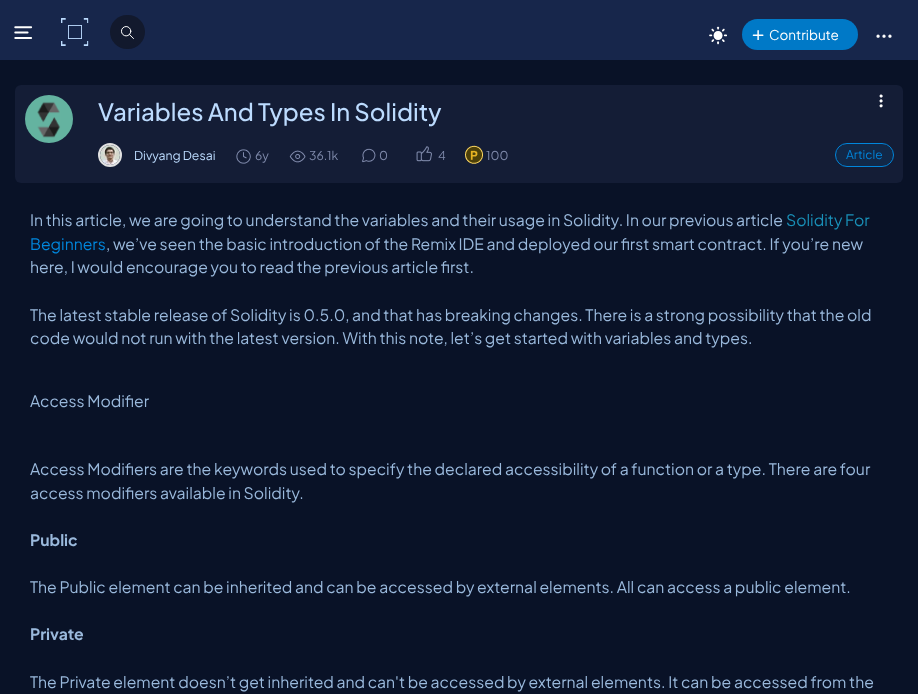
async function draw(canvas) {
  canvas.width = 918
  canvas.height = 694
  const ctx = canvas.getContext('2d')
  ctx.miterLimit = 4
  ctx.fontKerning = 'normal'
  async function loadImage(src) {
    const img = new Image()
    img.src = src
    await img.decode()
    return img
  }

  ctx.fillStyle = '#091227'
  ctx.fillRect(0, 0, 918, 694)
  ctx.fillStyle = '#17264b'
  ctx.fillRect(0, 0, 918, 60)
  ctx.drawImage(await loadImage('image0.png'), 61, 18, 28, 28)
  ctx.strokeStyle = '#bcdbfe'
  ctx.lineWidth = 0.7
  ctx.strokeRect(68.35, 25.35, 13.3, 13.3)
  ctx.strokeRect(68.35, 25.35, 13.3, 13.3)
  ctx.fillStyle = '#12192d'
  ctx.beginPath()
  ctx.roundRect(110, 15, 35, 34, 17)
  ctx.fill()
  ctx.drawImage(await loadImage('image1.png'), 121, 26, 13, 13)
  ctx.drawImage(await loadImage('image2.png'), 709, 26, 18, 19)
  ctx.fillStyle = '#0079c7'
  ctx.beginPath()
  ctx.roundRect(742, 19, 116, 31, 15.5)
  ctx.fill()
  ctx.drawImage(await loadImage('image3.png'), 752, 30, 12, 10)
  ctx.font = '13.5px Plus Jakarta Sans'
  ctx.fillStyle = '#fff'
  ctx.fillText('Contribute', 769, 40)
  ctx.drawImage(await loadImage('image4.png'), 876, 34, 16, 4)
  ctx.drawImage(await loadImage('image5.png'), 14, 26, 19, 13)
  ctx.fillStyle = '#141d36'
  ctx.beginPath()
  ctx.roundRect(15, 85, 888, 98, 6)
  ctx.fill()
  ctx.drawImage(await loadImage('image6.png'), 25, 95, 48, 48)
  ctx.font = '500 24px Plus Jakarta Sans'
  ctx.fillStyle = '#bcdbfe'
  ctx.fillText('Variables And Types In Solidity', 98, 121)
  ctx.drawImage(await loadImage('image7.png'), 879, 94, 4, 14)
  ctx.beginPath()
  ctx.arc(110, 155, 11, 0, 2 * Math.PI)
  ctx.strokeStyle = '#e1e1e1'
  ctx.lineWidth = 2
  ctx.stroke()
  ctx.drawImage(await loadImage('image8.png'), 100, 145, 20, 20)
  ctx.font = '12.25px Plus Jakarta Sans'
  ctx.fillText('Divyang Desai', 134, 160)
  ctx.drawImage(await loadImage('image9.png'), 236, 149, 15, 15)
  ctx.fillStyle = '#7f8aab'
  ctx.fillText('6y', 255, 160)
  ctx.drawImage(await loadImage('image10.png'), 289, 150, 17, 13)
  ctx.fillText('36.1k', 309, 160)
  ctx.drawImage(await loadImage('image11.png'), 362, 148, 14, 15)
  ctx.fillText('0', 379, 160)
  ctx.drawImage(await loadImage('image12.png'), 416, 146, 16, 16)
  ctx.fillText('4', 438, 160)
  ctx.drawImage(await loadImage('image13.png'), 465, 145, 18, 19)
  ctx.fillText('100', 486, 160)
  ctx.fillStyle = '#122847'
  ctx.beginPath()
  ctx.roundRect(836, 144, 57, 22, 11)
  ctx.fill()
  ctx.beginPath()
  ctx.roundRect(835.5, 143.5, 58, 23, 11.5)
  ctx.strokeStyle = '#0086dc'
  ctx.lineWidth = 1
  ctx.stroke()
  ctx.font = '12px Plus Jakarta Sans'
  ctx.fillStyle = '#0086dc'
  ctx.fillText('Article', 846, 159)
  ctx.font = '15.75px Plus Jakarta Sans'
  ctx.fillStyle = '#9ab9dc'
  ctx.fillText('In this article, we are going to understand the variables and their usage in Solidity. In our previous article', 30, 226)
  ctx.fillStyle = '#1990b8'
  ctx.fillText('Solidity For', 786, 226)
  ctx.fillStyle = '#0086dc'
  ctx.fillText('Beginners', 30, 250)
  ctx.fillStyle = '#9ab9dc'
  ctx.fillText(', we’ve seen the basic introduction of the Remix IDE and deployed our first smart contract. If you’re new', 106, 250)
  ctx.fillText('here, I would encourage you to read the previous article first.', 30, 273)
  ctx.fillText('The latest stable release of Solidity is 0.5.0, and that has breaking changes. There is a strong possibility that the old', 30, 321)
  ctx.fillText('code would not run with the latest version. With this note, let’s get started with variables and types.', 30, 344)
  ctx.fillText('Access Modifier', 30, 407)
  ctx.fillText('Access Modifiers are the keywords used to specify the declared accessibility of a function or a type. There are four', 30, 475)
  ctx.fillText('access modifiers available in Solidity.', 30, 499)
  ctx.font = 'bold 15.75px Plus Jakarta Sans'
  ctx.fillText('Public', 30, 546)
  ctx.font = '15.75px Plus Jakarta Sans'
  ctx.fillText('The Public element can be inherited and can be accessed by external elements. All can access a public element.', 30, 593)
  ctx.font = 'bold 15.75px Plus Jakarta Sans'
  ctx.fillText('Private', 30, 640)
  ctx.font = '15.75px Plus Jakarta Sans'
  ctx.fillText('The Private element doesn’t get inherited and can\'t be accessed by external elements. It can be accessed from the', 30, 688)
}

draw(document.querySelector('canvas'))
